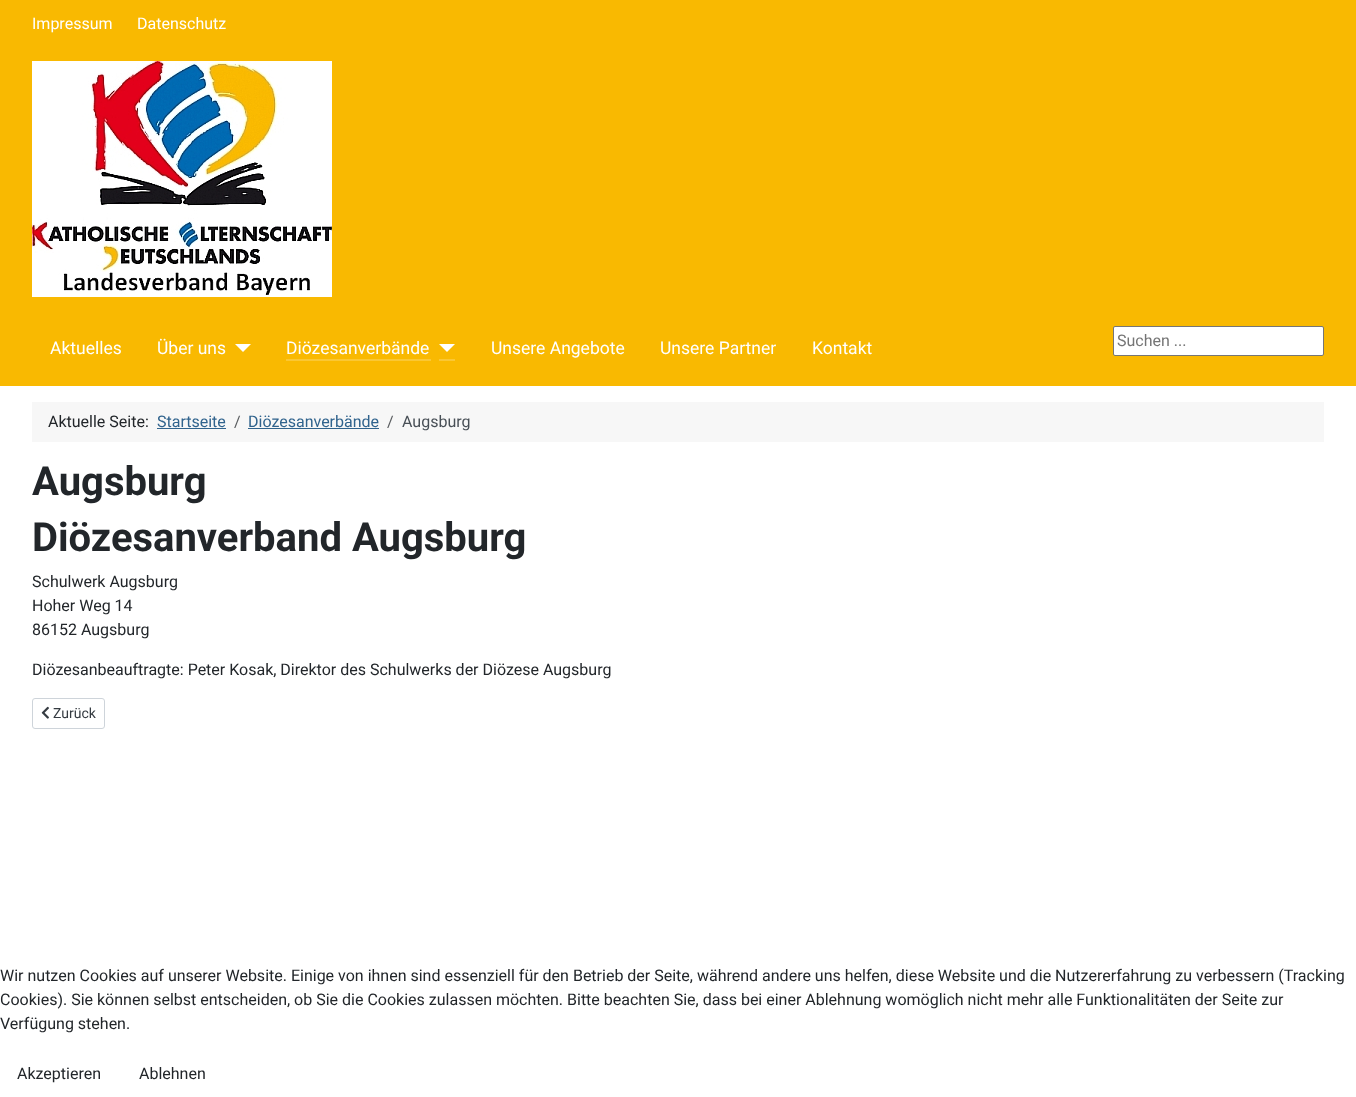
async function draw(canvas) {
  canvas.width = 1356
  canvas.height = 1097
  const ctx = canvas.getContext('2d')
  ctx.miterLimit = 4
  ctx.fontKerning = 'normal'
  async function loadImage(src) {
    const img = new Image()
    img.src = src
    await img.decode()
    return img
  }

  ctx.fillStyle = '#fff'
  ctx.fillRect(0, 0, 1356, 1097)
  ctx.fillStyle = '#f9b901'
  ctx.fillRect(0, 0, 1356, 386)
  ctx.font = '16px Roboto'
  ctx.fillStyle = '#fff'
  ctx.fillText('Impressum', 32, 29)
  ctx.fillText('Datenschutz', 137, 29)
  ctx.drawImage(await loadImage('image0.png'), 32, 61, 300, 236)
  ctx.font = '17.5px Roboto'
  ctx.fillText('Aktuelles', 50, 354)
  ctx.fillText('Über uns', 157, 354)
  ctx.beginPath()
  ctx.moveTo(235, 344)
  ctx.lineTo(251, 344)
  ctx.lineTo(243, 352)
  ctx.closePath()
  ctx.fill()
  ctx.fillText('Diözesanverbände', 286, 354)
  ctx.fillStyle = '#fac734'
  ctx.fillRect(286, 359, 145, 2)
  ctx.fillStyle = '#fff'
  ctx.beginPath()
  ctx.moveTo(439, 344)
  ctx.lineTo(455, 344)
  ctx.lineTo(447, 352)
  ctx.closePath()
  ctx.fill()
  ctx.fillStyle = '#fac734'
  ctx.fillRect(439, 359, 16, 2)
  ctx.fillStyle = '#fff'
  ctx.fillText('Unsere Angebote', 491, 354)
  ctx.fillText('Unsere Partner', 660, 354)
  ctx.fillText('Kontakt', 812, 354)
  ctx.beginPath()
  ctx.roundRect(1113.5, 326.5, 210, 29, 1.5)
  ctx.fill()
  ctx.strokeStyle = '#767676'
  ctx.stroke()
  ctx.font = '16px Roboto'
  ctx.fillStyle = '#757575'
  ctx.fillText('Suchen ...', 1117, 346)
  ctx.fillStyle = '#f7f7f7'
  ctx.fillRect(32, 402, 1292, 40)
  ctx.fillStyle = '#22262a'
  ctx.fillText('Aktuelle Seite:', 48, 427)
  ctx.fillStyle = '#30638d'
  ctx.fillText('Startseite', 157, 427)
  ctx.fillRect(157, 428, 69, 1)
  ctx.fillStyle = '#575a5d'
  ctx.fillText('/', 234, 427)
  ctx.fillStyle = '#30638d'
  ctx.fillText('Diözesanverbände', 248, 427)
  ctx.fillRect(248, 428, 131, 1)
  ctx.fillStyle = '#575a5d'
  ctx.fillText('/', 387, 427)
  ctx.fillStyle = '#484f56'
  ctx.fillText('Augsburg', 402, 427)
  ctx.font = 'bold 40px Roboto'
  ctx.fillStyle = '#22262a'
  ctx.fillText('Augsburg', 32, 495)
  ctx.fillText('Diözesanverband Augsburg', 32, 551)
  ctx.font = '16px Roboto'
  ctx.fillText('Schulwerk Augsburg', 32, 587)
  ctx.fillText('Hoher Weg 14', 32, 611)
  ctx.fillText('86152 Augsburg', 32, 635)
  ctx.fillText('Diözesanbeauftragte: Peter Kosak, Direktor des Schulwerks der Diözese Augsburg', 32, 675)
  ctx.beginPath()
  ctx.roundRect(32.5, 698.5, 72, 30, 2.5)
  ctx.strokeStyle = '#ced4da'
  ctx.stroke()
  ctx.drawImage(await loadImage('image1.png'), 41, 706, 8, 13)
  ctx.font = '14px Roboto'
  ctx.fillStyle = '#353b41'
  ctx.fillText('Zurück', 53, 718)
  ctx.font = '16px Roboto'
  ctx.fillStyle = '#22262a'
  ctx.fillText('Wir nutzen Cookies auf unserer Website. Einige von ihnen sind essenziell für den Betrieb der Seite, während andere uns helfen, diese Website und die Nutzererfahrung zu verbessern (Tracking', 0, 981)
  ctx.fillText('Cookies). Sie können selbst entscheiden, ob Sie die Cookies zulassen möchten. Bitte beachten Sie, dass bei einer Ablehnung womöglich nicht mehr alle Funktionalitäten der Seite zur', 0, 1005)
  ctx.fillText('Verfügung stehen.', 0, 1029)
  ctx.fillText('Akzeptieren', 17, 1079)
  ctx.fillText('Ablehnen', 139, 1079)
}

draw(document.querySelector('canvas'))
